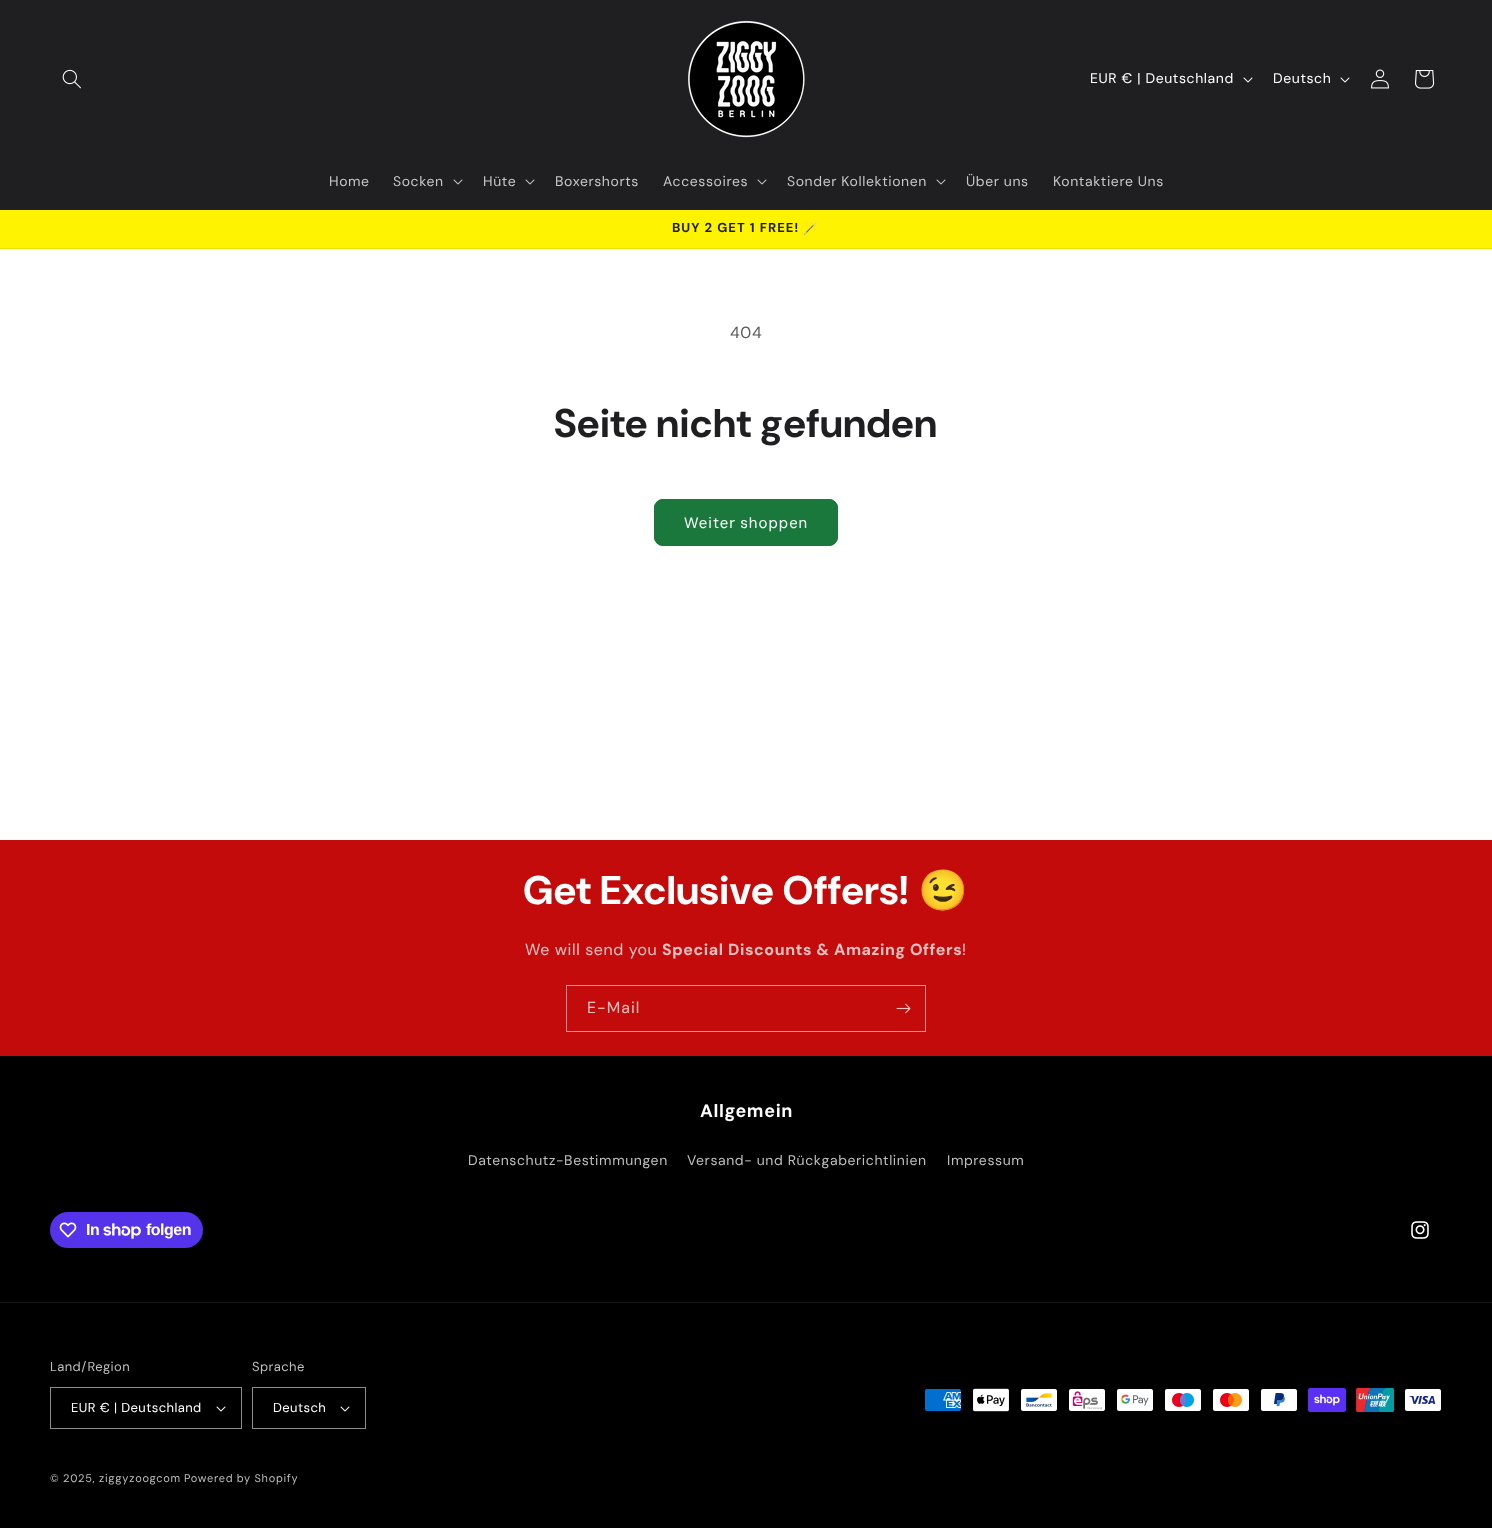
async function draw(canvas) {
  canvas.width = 1492
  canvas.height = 1528
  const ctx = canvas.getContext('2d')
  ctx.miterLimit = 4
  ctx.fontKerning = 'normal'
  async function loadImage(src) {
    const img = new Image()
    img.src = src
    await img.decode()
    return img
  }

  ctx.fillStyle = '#fff'
  ctx.fillRect(0, 0, 1492, 1528)
  ctx.fillStyle = '#1f1f21'
  ctx.fillRect(0, 0, 1492, 210)
  ctx.drawImage(await loadImage('image0.png'), 62, 69, 19, 20)
  ctx.drawImage(await loadImage('image1.png'), 688, 20, 117, 118)
  ctx.letterSpacing = '0.6px'
  ctx.font = '14px "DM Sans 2"'
  ctx.fillStyle = '#fff'
  ctx.fillText('EUR € | Deutschland', 1090, 83)
  ctx.drawImage(await loadImage('image2.png'), 1243, 77, 10, 6)
  ctx.fillText('Deutsch', 1273, 83)
  ctx.drawImage(await loadImage('image2.png'), 1340, 77, 10, 6)
  ctx.drawImage(await loadImage('image3.png'), 1371, 69, 18, 20)
  ctx.drawImage(await loadImage('image4.png'), 1415, 70, 20, 19)
  ctx.fillStyle = '#c7c7c8'
  ctx.fillText('Home', 329, 186)
  ctx.fillText('Socken', 393, 186)
  ctx.drawImage(await loadImage('image5.png'), 453, 179, 10, 6)
  ctx.fillText('Hüte', 483, 186)
  ctx.drawImage(await loadImage('image5.png'), 525, 179, 10, 6)
  ctx.fillText('Boxershorts', 555, 186)
  ctx.fillText('Accessoires', 663, 186)
  ctx.drawImage(await loadImage('image5.png'), 757, 179, 10, 6)
  ctx.fillText('Sonder Kollektionen', 787, 186)
  ctx.drawImage(await loadImage('image5.png'), 936, 179, 10, 6)
  ctx.fillText('Über uns', 966, 186)
  ctx.fillText('Kontaktiere Uns', 1053, 186)
  ctx.fillStyle = '#fef401'
  ctx.fillRect(0, 210, 1492, 38)
  ctx.fillStyle = '#ece304'
  ctx.fillRect(0, 248, 1492, 1)
  ctx.letterSpacing = '1px'
  ctx.font = 'bold 13px DM Sans'
  ctx.fillStyle = '#1f1f21'
  ctx.fillText('BUY 2 GET 1 FREE!', 672, 232)
  ctx.font = 'bold 13px Noto Color Emoji'
  ctx.fillText('🪄', 803, 232)
  ctx.letterSpacing = '0.6px'
  ctx.font = '16px DM Sans'
  ctx.fillStyle = '#575759'
  ctx.fillText('404', 730, 338)
  ctx.font = 'bold 40px "DM Sans 2"'
  ctx.fillStyle = '#1f1f21'
  ctx.fillText('Seite nicht gefunden', 554, 437)
  ctx.fillStyle = '#1a783c'
  ctx.beginPath()
  ctx.roundRect(654, 499, 184, 47, 9)
  ctx.fill()
  ctx.beginPath()
  ctx.roundRect(654.5, 499.5, 183, 46, 8.5)
  ctx.strokeStyle = '#1a783c'
  ctx.stroke()
  ctx.letterSpacing = '1px'
  ctx.wordSpacing = '-1px'
  ctx.font = '15px "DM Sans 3"'
  ctx.fillStyle = '#fff'
  ctx.fillText('Weiter shoppen', 684, 528)
  ctx.fillStyle = '#c30b0b'
  ctx.fillRect(0, 840, 1492, 216)
  ctx.letterSpacing = '0.6px'
  ctx.wordSpacing = '0px'
  ctx.font = 'bold 40px "DM Sans 2"'
  ctx.fillStyle = '#fff'
  ctx.fillText('Get Exclusive Offers!', 523, 904)
  ctx.font = 'bold 40px Noto Color Emoji'
  ctx.fillText('😉', 918, 904)
  ctx.font = '16px DM Sans'
  ctx.fillStyle = '#f0c2c2'
  ctx.fillText('We will send you', 525, 955)
  ctx.font = 'bold 16px "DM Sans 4"'
  ctx.fillText('Special Discounts & Amazing Offers', 662, 955)
  ctx.font = '16px DM Sans'
  ctx.fillText('!', 962, 955)
  ctx.strokeStyle = '#e49191'
  ctx.strokeRect(566.5, 985.5, 359, 46)
  ctx.letterSpacing = '1px'
  ctx.fillText('E-Mail', 587, 1013)
  ctx.drawImage(await loadImage('image6.png'), 896, 1003, 15, 11)
  ctx.fillStyle = '#000'
  ctx.fillRect(0, 1056, 1492, 472)
  ctx.letterSpacing = '0.6px'
  ctx.font = 'bold 18px "DM Sans 3"'
  ctx.fillStyle = '#fff'
  ctx.fillText('Allgemein', 700, 1117)
  ctx.font = '14px "DM Sans 2"'
  ctx.fillStyle = '#bfbfbf'
  ctx.fillText('Datenschutz-Bestimmungen', 468, 1165)
  ctx.fillText('Versand- und Rückgaberichtlinien', 687, 1165)
  ctx.fillText('Impressum', 947, 1165)
  ctx.fillStyle = '#5433eb'
  ctx.beginPath()
  ctx.roundRect(50, 1212, 153, 36, 18)
  ctx.fill()
  ctx.drawImage(await loadImage('image7.png'), 59, 1222, 18, 16)
  ctx.letterSpacing = '-0.5px'
  ctx.font = 'bold 16px Liberation Sans'
  ctx.fillStyle = '#fff'
  ctx.fillText('In', 86, 1235)
  ctx.drawImage(await loadImage('image8.png'), 103, 1223, 38, 16)
  ctx.fillText('folgen', 146, 1235)
  ctx.drawImage(await loadImage('image9.png'), 1411, 1221, 18, 18)
  ctx.fillStyle = '#141414'
  ctx.fillRect(0, 1302, 1492, 1)
  ctx.letterSpacing = '0.4px'
  ctx.font = '13px "DM Sans 4"'
  ctx.fillStyle = '#bfbfbf'
  ctx.fillText('Land/Region', 50, 1371)
  ctx.drawImage(await loadImage('image10.png'), 216, 1406, 10, 6)
  ctx.strokeStyle = '#8c8c8c'
  ctx.strokeRect(50.5, 1387.5, 191, 41)
  ctx.fillStyle = '#fff'
  ctx.fillText('EUR € | Deutschland', 71, 1412)
  ctx.fillStyle = '#bfbfbf'
  ctx.fillText('Sprache', 252, 1371)
  ctx.drawImage(await loadImage('image10.png'), 340, 1406, 10, 6)
  ctx.strokeRect(252.5, 1387.5, 113, 41)
  ctx.fillStyle = '#fff'
  ctx.fillText('Deutsch', 273, 1412)
  ctx.drawImage(await loadImage('image11.png'), 925, 1389, 36, 22)
  ctx.drawImage(await loadImage('image12.png'), 973, 1388, 36, 24)
  ctx.drawImage(await loadImage('image13.png'), 1021, 1389, 36, 22)
  ctx.drawImage(await loadImage('image14.png'), 1069, 1389, 36, 22)
  ctx.drawImage(await loadImage('image15.png'), 1117, 1389, 36, 22)
  ctx.drawImage(await loadImage('image16.png'), 1165, 1389, 36, 22)
  ctx.drawImage(await loadImage('image17.png'), 1213, 1389, 36, 22)
  ctx.drawImage(await loadImage('image18.png'), 1261, 1389, 36, 22)
  ctx.drawImage(await loadImage('image19.png'), 1308, 1388, 38, 24)
  ctx.drawImage(await loadImage('image20.png'), 1356, 1388, 38, 24)
  ctx.drawImage(await loadImage('image21.png'), 1405, 1389, 36, 22)
  ctx.letterSpacing = '0.7px'
  ctx.font = '11px "DM Sans 3"'
  ctx.fillStyle = '#bfbfbf'
  ctx.fillText('© 2025, ziggyzoogcom', 50, 1482)
  ctx.fillText('Powered by Shopify', 184, 1482)
}

draw(document.querySelector('canvas'))
